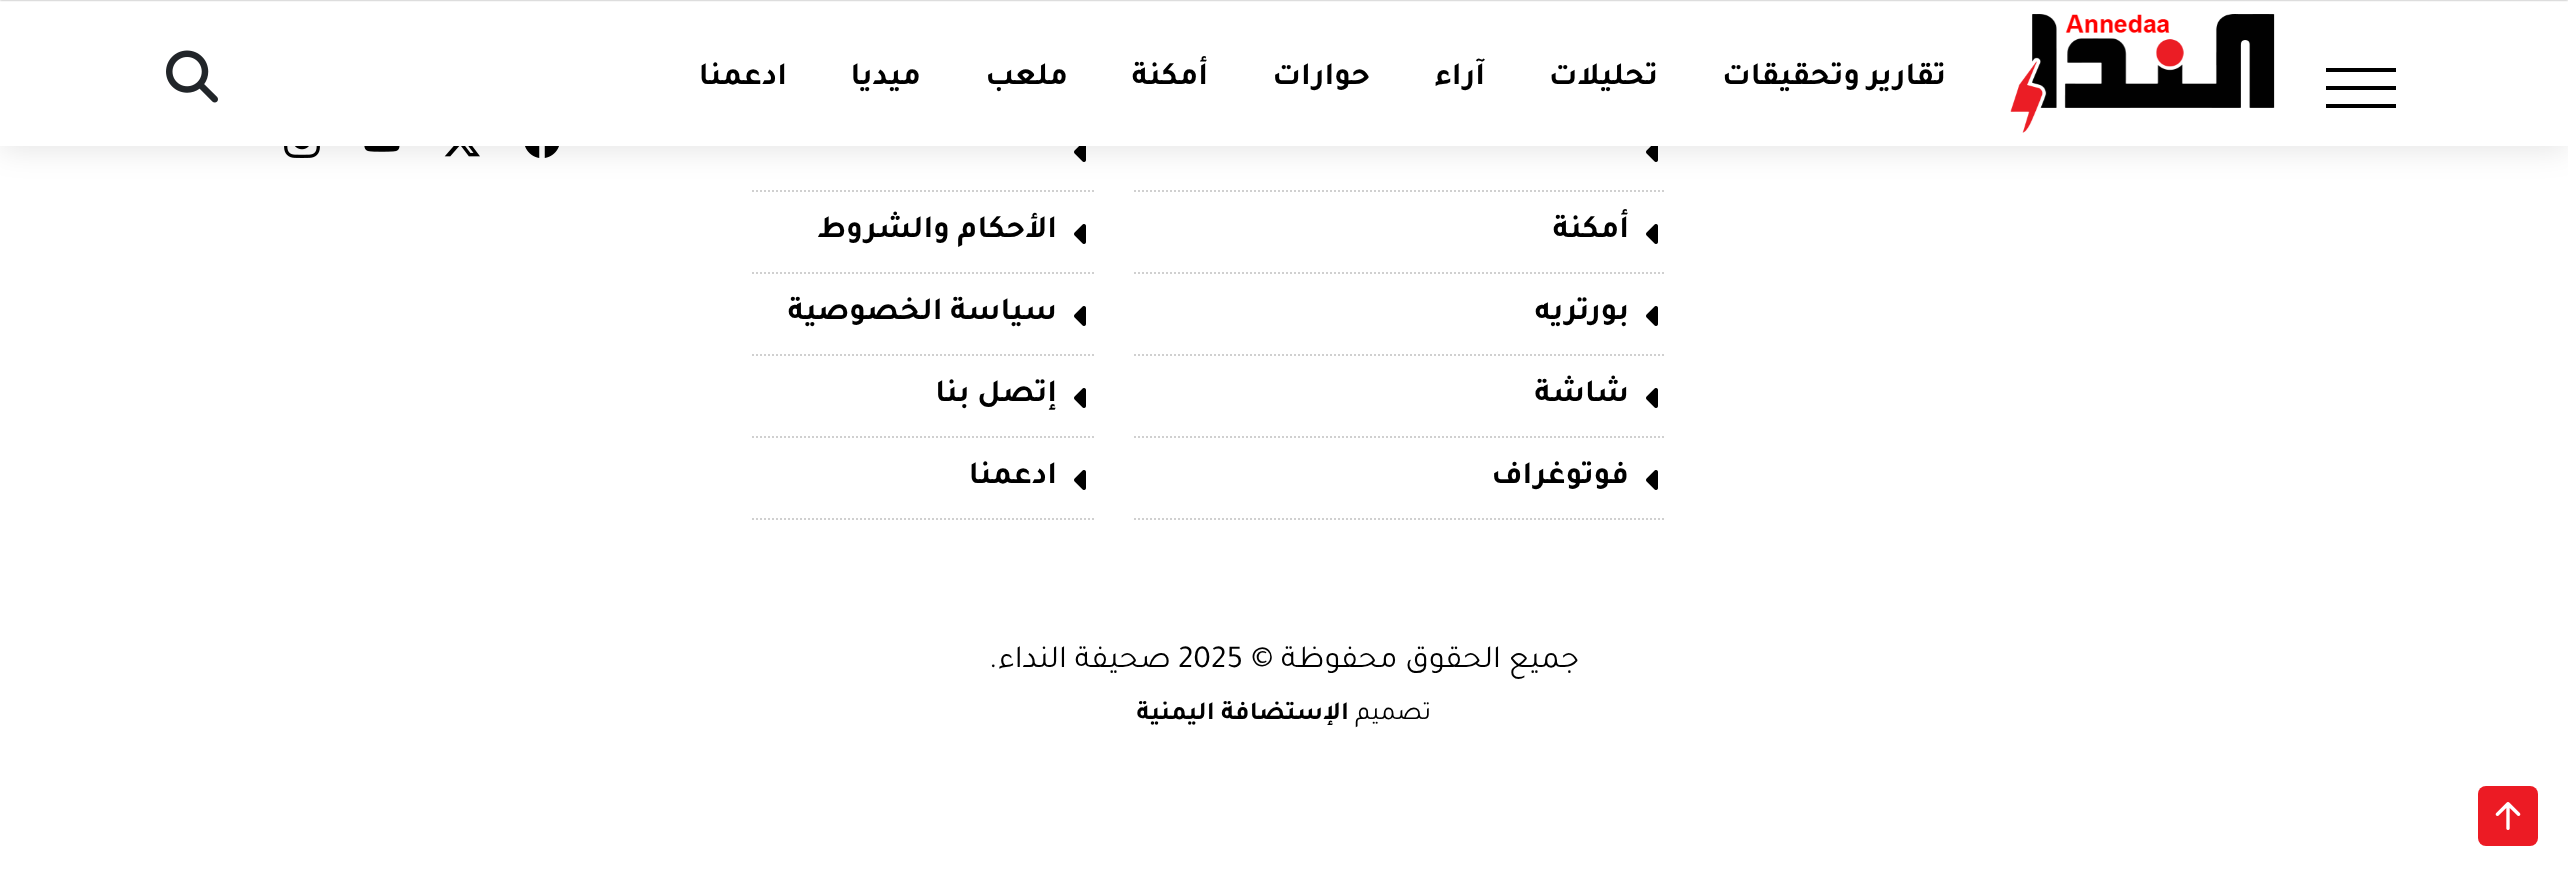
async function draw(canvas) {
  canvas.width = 2568
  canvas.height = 875
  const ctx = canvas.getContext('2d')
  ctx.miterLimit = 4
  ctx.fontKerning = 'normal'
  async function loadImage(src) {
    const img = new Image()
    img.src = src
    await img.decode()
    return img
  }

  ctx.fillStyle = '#fff'
  ctx.fillRect(0, 0, 2568, 875)
  ctx.drawImage(await loadImage('image2.png'), 525, 146, 34, 12)
  ctx.drawImage(await loadImage('image3.png'), 444, 146, 36, 11)
  ctx.drawImage(await loadImage('image4.png'), 364, 146, 36, 6)
  ctx.drawImage(await loadImage('image5.png'), 284, 146, 36, 12)
  ctx.beginPath()
  ctx.moveTo(1134, 191)
  ctx.lineTo(1666, 191)
  ctx.strokeStyle = '#d0d0d0'
  ctx.lineWidth = 2
  ctx.setLineDash([2, 2])
  ctx.stroke()
  ctx.drawImage(await loadImage('image6.png'), 1646, 146, 12, 16)
  ctx.beginPath()
  ctx.moveTo(752, 191)
  ctx.lineTo(1094, 191)
  ctx.stroke()
  ctx.drawImage(await loadImage('image6.png'), 1074, 146, 12, 16)
  ctx.fillStyle = '#0000001a'
  ctx.filter = 'blur(15px)'
  ctx.beginPath()
  ctx.rect(0, 4, 2568, 146)
  ctx.fill()
  ctx.filter = 'none'
  ctx.fillStyle = '#fff'
  ctx.fillRect(0, 0, 2568, 146)
  ctx.fillStyle = '#00000066'
  ctx.filter = 'blur(1px)'
  ctx.beginPath()
  ctx.rect(0, -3, 2568, 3)
  ctx.fill()
  ctx.filter = 'none'
  ctx.fillStyle = '#000'
  ctx.fillRect(2326, 86, 70, 4)
  ctx.fillRect(2326, 68, 70, 4)
  ctx.fillRect(2326, 104, 70, 4)
  ctx.drawImage(await loadImage('image0.png'), 2010, 14, 265, 119)
  ctx.direction = 'rtl'
  ctx.font = 'bold 32px Tajawal'
  ctx.fillText('تقارير وتحقيقات', 1946, 84)
  ctx.fillText('تحليلات', 1658, 84)
  ctx.fillText('آراء', 1485, 84)
  ctx.fillText('حوارات', 1370, 84)
  ctx.fillText('أمكنة', 1208, 84)
  ctx.fillText('ملعب', 1068, 84)
  ctx.fillText('ميديا', 921, 84)
  ctx.fillText('ادعمنا', 787, 84)
  ctx.drawImage(await loadImage('image1.png'), 166, 50, 52, 53)
  ctx.beginPath()
  ctx.moveTo(1134, 273)
  ctx.lineTo(1666, 273)
  ctx.stroke()
  ctx.drawImage(await loadImage('image7.png'), 1646, 224, 12, 20)
  ctx.fillText('أمكنة', 1629, 237)
  ctx.beginPath()
  ctx.moveTo(1134, 355)
  ctx.lineTo(1666, 355)
  ctx.stroke()
  ctx.drawImage(await loadImage('image7.png'), 1646, 306, 12, 20)
  ctx.fillText('بورتريه', 1629, 319)
  ctx.beginPath()
  ctx.moveTo(1134, 437)
  ctx.lineTo(1666, 437)
  ctx.stroke()
  ctx.drawImage(await loadImage('image7.png'), 1646, 388, 12, 20)
  ctx.fillText('شاشة', 1629, 401)
  ctx.beginPath()
  ctx.moveTo(1134, 519)
  ctx.lineTo(1666, 519)
  ctx.stroke()
  ctx.drawImage(await loadImage('image7.png'), 1646, 470, 12, 20)
  ctx.fillText('فوتوغراف', 1629, 483)
  ctx.beginPath()
  ctx.moveTo(752, 273)
  ctx.lineTo(1094, 273)
  ctx.stroke()
  ctx.drawImage(await loadImage('image7.png'), 1074, 224, 12, 20)
  ctx.fillText('الأحكام والشروط', 1057, 237)
  ctx.beginPath()
  ctx.moveTo(752, 355)
  ctx.lineTo(1094, 355)
  ctx.stroke()
  ctx.drawImage(await loadImage('image7.png'), 1074, 306, 12, 20)
  ctx.fillText('سياسة الخصوصية', 1057, 319)
  ctx.beginPath()
  ctx.moveTo(752, 437)
  ctx.lineTo(1094, 437)
  ctx.stroke()
  ctx.drawImage(await loadImage('image7.png'), 1074, 388, 12, 20)
  ctx.fillText('إتصل بنا', 1057, 401)
  ctx.beginPath()
  ctx.moveTo(752, 519)
  ctx.lineTo(1094, 519)
  ctx.stroke()
  ctx.drawImage(await loadImage('image7.png'), 1074, 470, 12, 20)
  ctx.fillText('ادعمنا', 1057, 483)
  ctx.font = '32px Tajawal'
  ctx.fillText('جميع الحقوق محفوظة ©', 1579, 667)
  ctx.direction = 'ltr'
  ctx.fillText('2025', 1178, 667)
  ctx.direction = 'rtl'
  ctx.fillText('صحيفة النداء', 1171, 667)
  ctx.direction = 'ltr'
  ctx.fillText('.', 989, 667)
  ctx.direction = 'rtl'
  ctx.font = '26px Tajawal'
  ctx.fillText('تصميم', 1431, 719)
  ctx.font = 'bold 26px Tajawal'
  ctx.fillText('الإستضافة اليمنية', 1349, 719)
  ctx.fillStyle = '#ec1b24'
  ctx.beginPath()
  ctx.roundRect(2478, 786, 60, 60, 8)
  ctx.fill()
  ctx.drawImage(await loadImage('image8.png'), 2495, 802, 26, 28)
}

draw(document.querySelector('canvas'))
